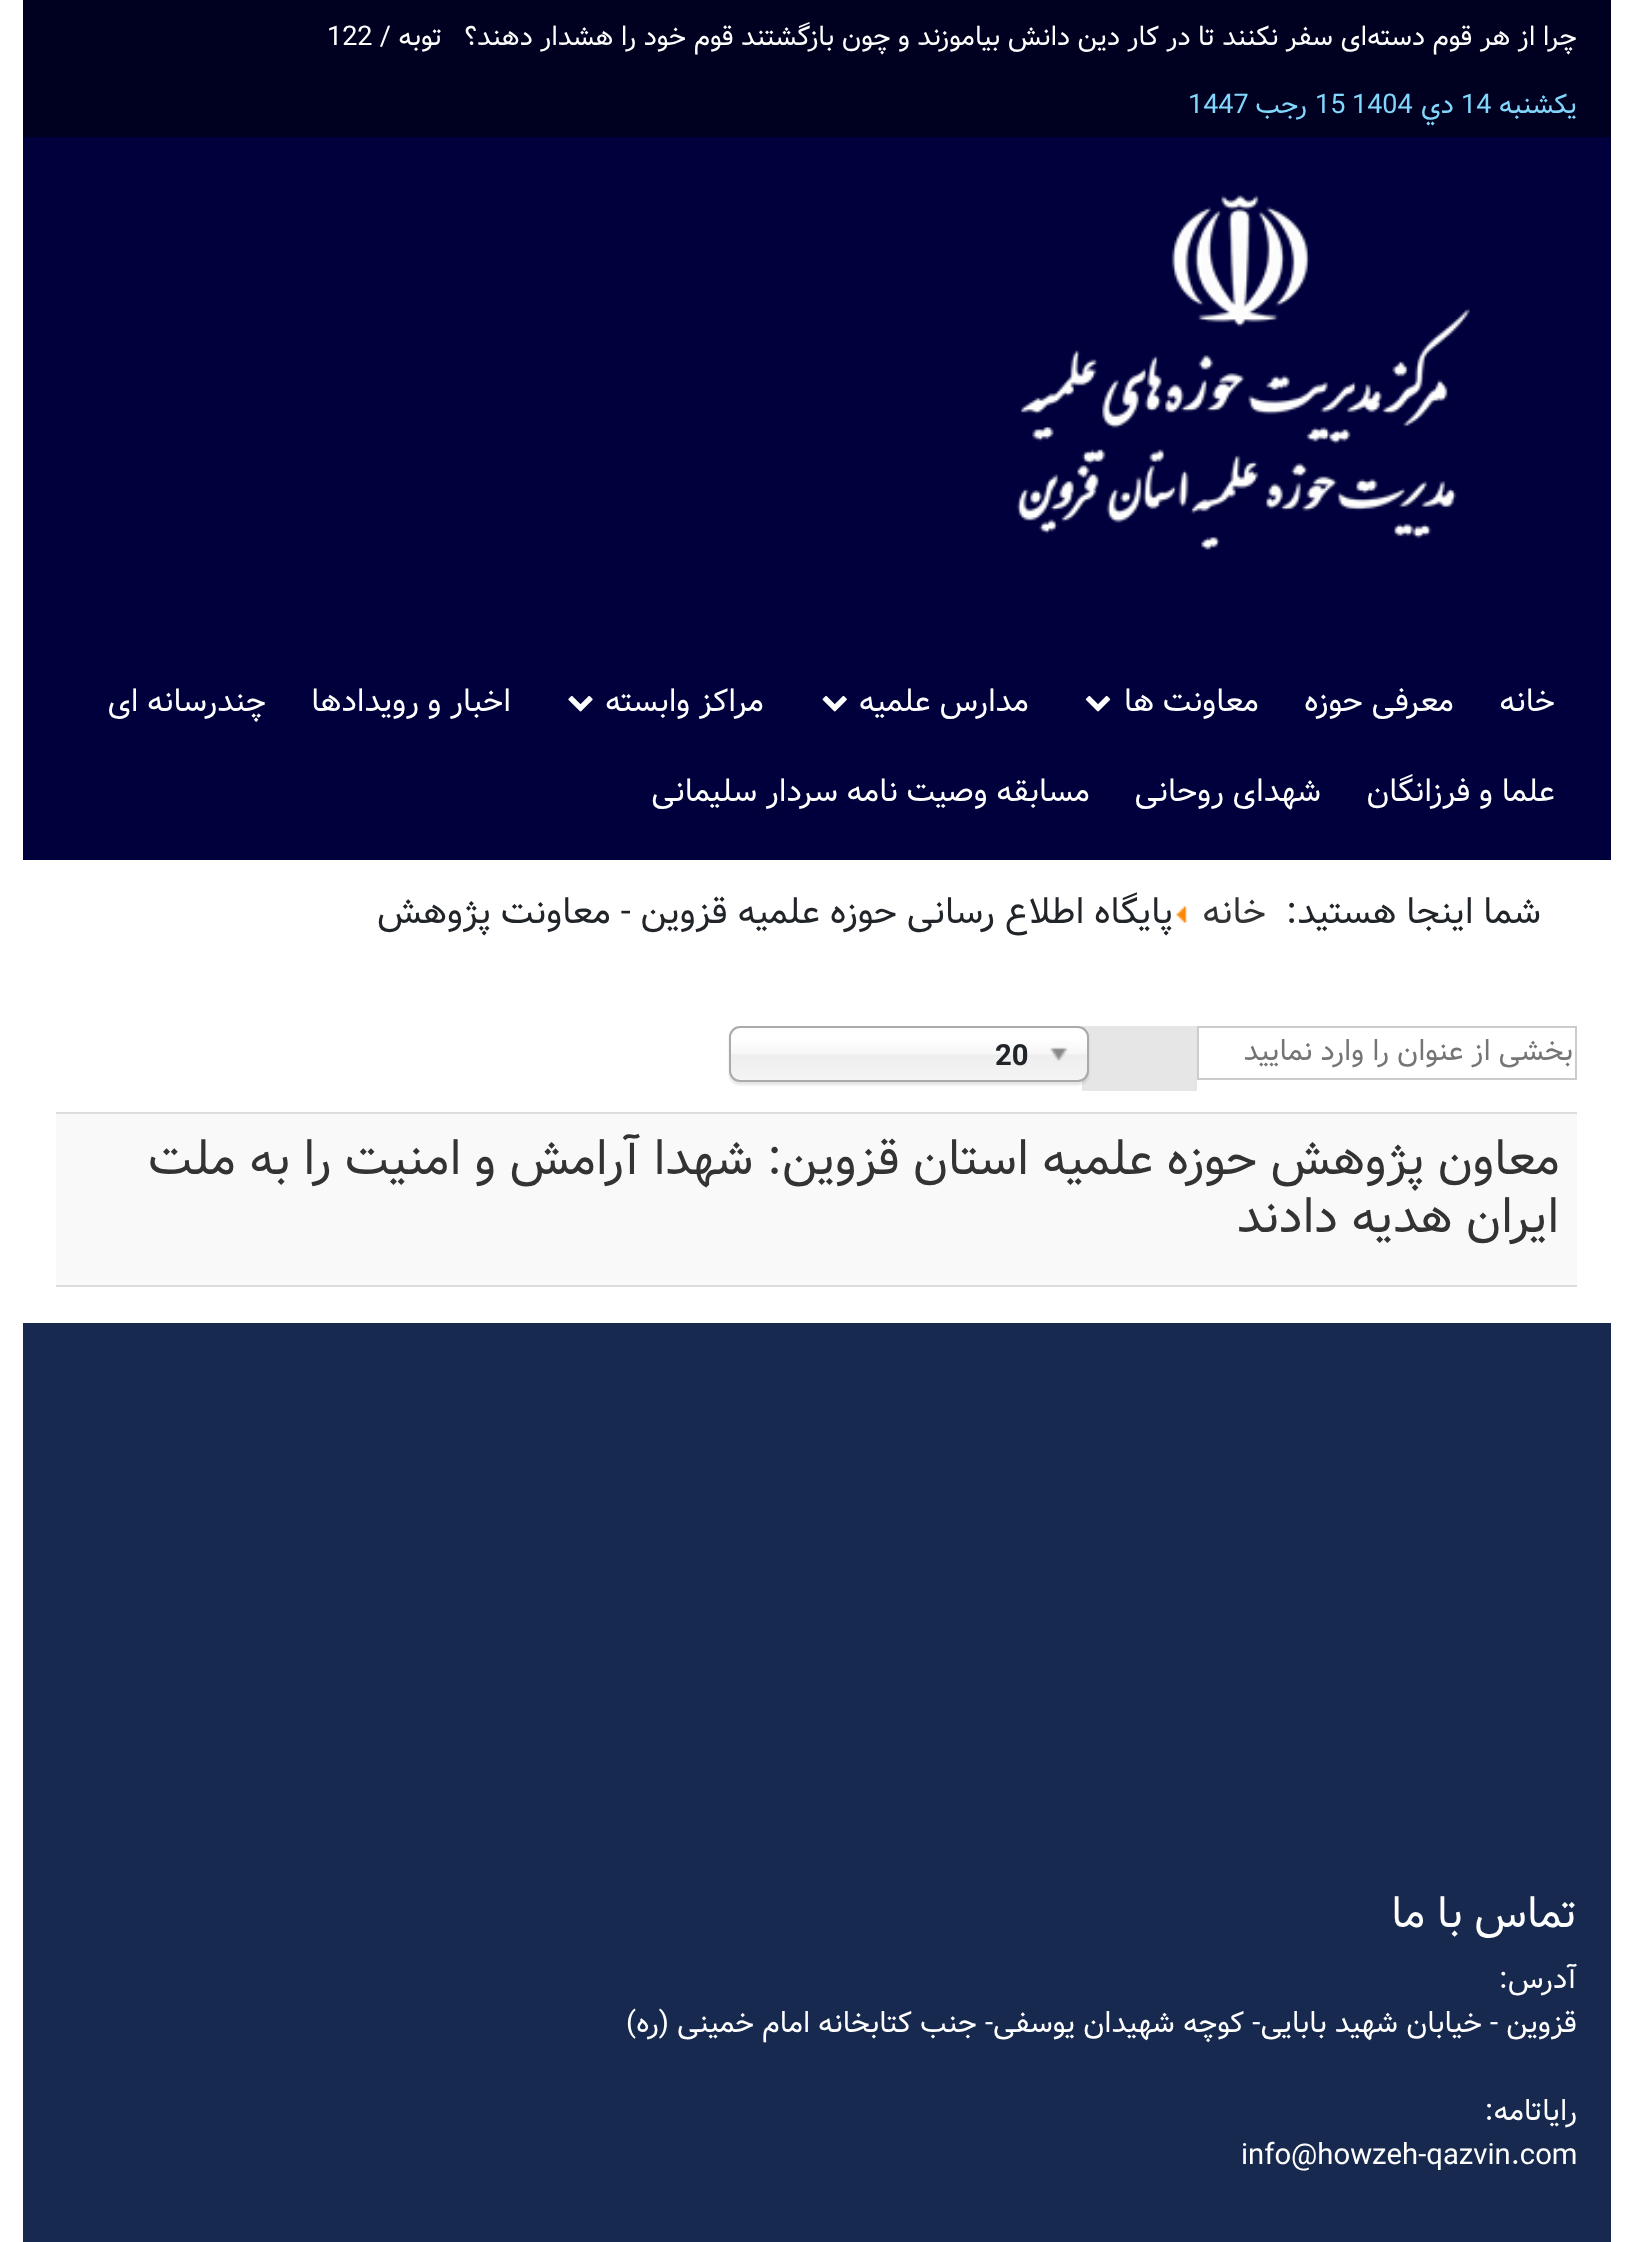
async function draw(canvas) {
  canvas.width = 1632
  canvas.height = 2242
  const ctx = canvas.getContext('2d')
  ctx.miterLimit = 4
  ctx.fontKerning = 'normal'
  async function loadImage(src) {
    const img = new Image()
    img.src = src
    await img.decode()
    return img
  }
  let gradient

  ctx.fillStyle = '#fff'
  ctx.fillRect(0, 0, 1632, 2242)
  ctx.fillStyle = '#000021'
  ctx.fillRect(23, 0, 1588, 137)
  ctx.direction = 'rtl'
  ctx.font = '27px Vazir'
  ctx.fillStyle = '#fff'
  ctx.fillText('چرا از هر قوم دسته‌اى سفر نکنند تا در کار دین دانش بیاموزند و چون بازگشتند قوم خود را هشدار دهند؟   توبه /', 1577, 45)
  ctx.direction = 'ltr'
  ctx.fillText('122', 327, 45)
  ctx.direction = 'rtl'
  ctx.fillStyle = '#81d6fc'
  ctx.fillText('يكشنبه', 1577, 113)
  ctx.direction = 'ltr'
  ctx.fillText('14', 1461, 113)
  ctx.direction = 'rtl'
  ctx.fillText('دي', 1454, 113)
  ctx.direction = 'ltr'
  ctx.fillText('1404', 1352, 113)
  ctx.fillText('15', 1315, 113)
  ctx.direction = 'rtl'
  ctx.fillText('رجب', 1307, 113)
  ctx.direction = 'ltr'
  ctx.fillText('1447', 1188, 113)
  ctx.fillStyle = '#00003d'
  ctx.fillRect(23, 137, 1588, 723)
  ctx.drawImage(await loadImage('image0.png'), 1016, 195, 454, 355)
  ctx.direction = 'rtl'
  ctx.font = '31.5px Vazir'
  ctx.fillStyle = '#fff'
  ctx.fillText('خانه', 1555, 711)
  ctx.fillText('معرفی حوزه', 1454, 711)
  ctx.fillText('معاونت ها', 1259, 711)
  ctx.drawImage(await loadImage('image1.png'), 1085, 695, 26, 17)
  ctx.fillText('مدارس علمیه', 1029, 711)
  ctx.drawImage(await loadImage('image2.png'), 822, 695, 25, 17)
  ctx.fillText('مراکز وابسته', 764, 711)
  ctx.drawImage(await loadImage('image3.png'), 568, 695, 25, 17)
  ctx.fillText('اخبار و رویدادها', 511, 711)
  ctx.fillText('چندرسانه ای', 266, 711)
  ctx.fillText('علما و فرزانگان', 1555, 801)
  ctx.fillText('شهدای روحانی', 1321, 801)
  ctx.fillText('مسابقه وصیت نامه سردار سلیمانی', 1090, 801)
  ctx.font = '36px Vazir'
  ctx.fillStyle = '#212529'
  ctx.fillText('شما اینجا هستید:', 1541, 923)
  ctx.fillStyle = '#333'
  ctx.fillText('خانه', 1266, 923)
  ctx.drawImage(await loadImage('image4.png'), 1176, 906, 11, 18)
  ctx.fillStyle = '#212529'
  ctx.fillText('پایگاه اطلاع رسانی حوزه علمیه قزوین - معاونت پژوهش', 1173, 923)
  ctx.strokeStyle = '#ccc'
  ctx.lineWidth = 2
  ctx.strokeRect(1198, 1027, 378, 52)
  ctx.font = '29.25px Vazir'
  ctx.fillStyle = '#757575'
  ctx.fillText('بخشی از عنوان را وارد نمایید', 1573, 1060)
  ctx.fillStyle = '#e6e6e6'
  ctx.fillRect(1082, 1026, 115, 65)
  ctx.fillStyle = '#0000001a'
  ctx.filter = 'blur(1px)'
  ctx.beginPath()
  ctx.roundRect(729, 1028, 360, 57, 11)
  ctx.fill()
  ctx.filter = 'none'
  gradient = ctx.createLinearGradient(909, 1028, 909, 1080)
  gradient.addColorStop(0.2, '#fff')
  gradient.addColorStop(0.5, '#f6f6f6')
  gradient.addColorStop(0.52, '#eee')
  gradient.addColorStop(1, '#f4f4f4')
  ctx.fillStyle = gradient
  ctx.beginPath()
  ctx.roundRect(731, 1028, 356, 52, 9)
  ctx.fill()
  ctx.beginPath()
  ctx.roundRect(730, 1027, 358, 54, 10)
  ctx.strokeStyle = '#aaa'
  ctx.stroke()
  ctx.drawImage(await loadImage('image5.png'), 1050, 1047, 18, 15)
  ctx.direction = 'ltr'
  ctx.font = 'bold 29.25px Vazir'
  ctx.fillStyle = '#212529'
  ctx.fillText('20', 995, 1065)
  ctx.fillStyle = '#ddd'
  ctx.fillRect(56, 1112, 1521, 2)
  ctx.fillStyle = '#f9f9f9'
  ctx.fillRect(56, 1114, 1521, 171)
  ctx.fillStyle = '#ddd'
  ctx.fillRect(56, 1285, 1521, 2)
  ctx.direction = 'rtl'
  ctx.font = '48.6px Vazir'
  ctx.fillStyle = '#333'
  ctx.fillText('معاون پژوهش حوزه علمیه استان قزوین: شهدا آرامش و امنیت را به ملت', 1560, 1174)
  ctx.fillText('ایران هدیه دادند', 1559, 1232)
  ctx.fillStyle = '#17294e'
  ctx.fillRect(23, 1323, 1588, 919)
  ctx.font = '43px Vazir'
  ctx.fillStyle = '#fff'
  ctx.fillText('تماس با ما', 1577, 1927)
  ctx.font = '29.25px Vazir'
  ctx.fillText('آدرس:', 1577, 1988)
  ctx.fillText('قزوین - خیابان شهید بابایی- کوچه شهیدان یوسفی- جنب کتابخانه امام خمینی (ره)', 1577, 2032)
  ctx.fillText('رایاتامه:', 1577, 2120)
  ctx.direction = 'ltr'
  ctx.fillText('info@howzeh-qazvin.com', 1241, 2164)
}

draw(document.querySelector('canvas'))
